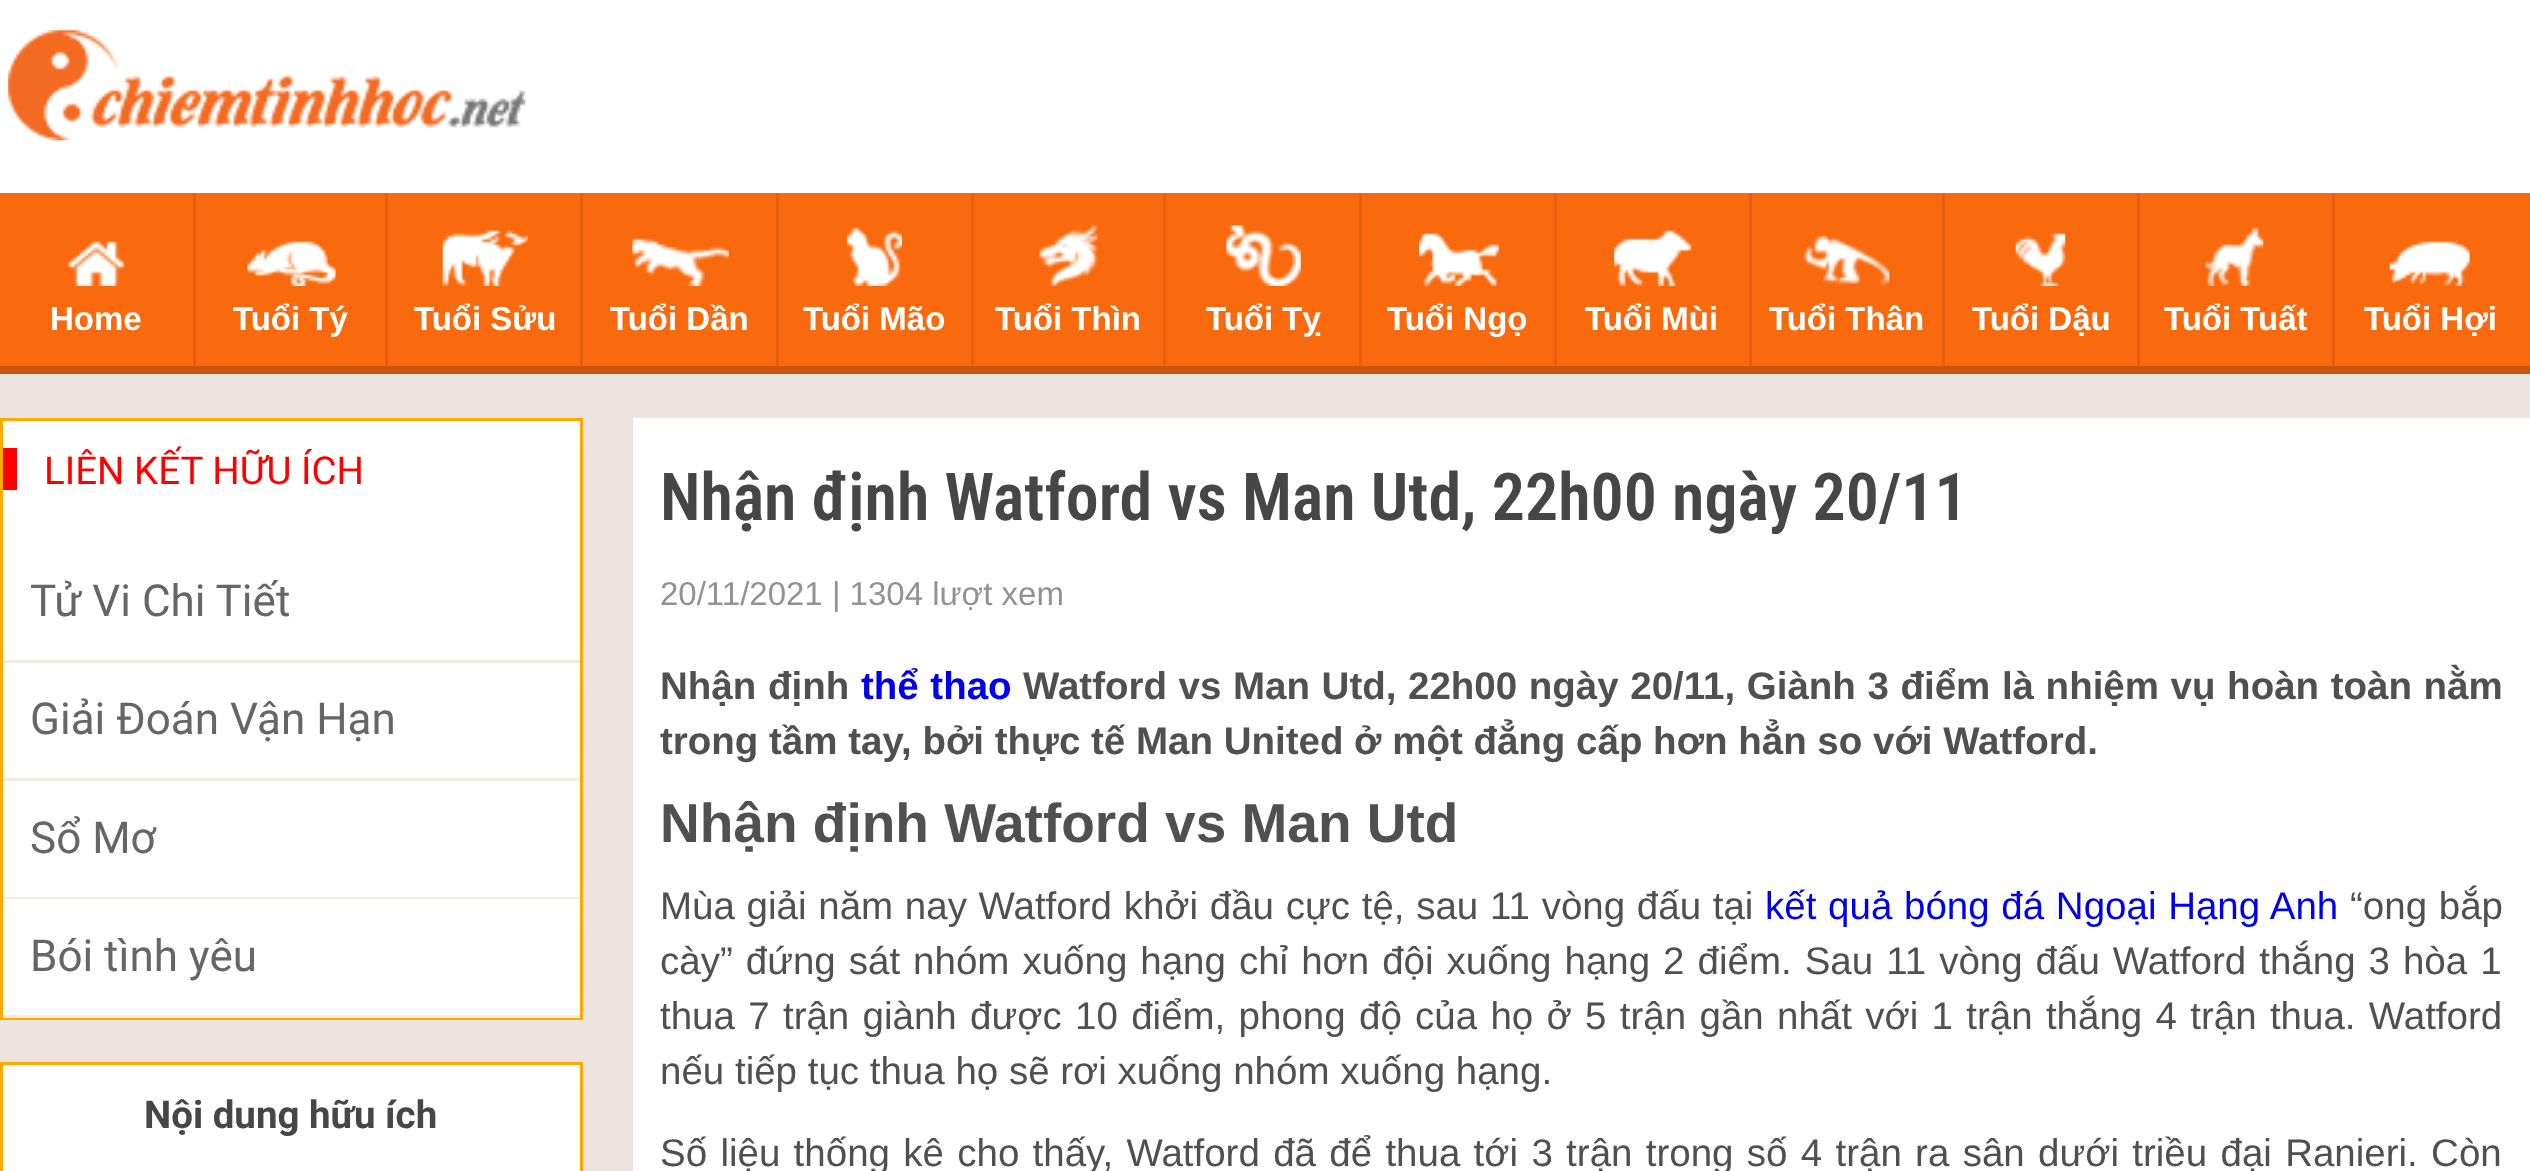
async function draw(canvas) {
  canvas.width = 2530
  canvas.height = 1171
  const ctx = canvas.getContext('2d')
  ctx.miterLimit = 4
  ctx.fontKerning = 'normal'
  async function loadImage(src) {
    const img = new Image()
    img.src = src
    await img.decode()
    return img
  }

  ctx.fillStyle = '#ede4df'
  ctx.fillRect(0, 0, 2530, 1171)
  ctx.fillStyle = '#fff'
  ctx.fillRect(0, 0, 2530, 193)
  ctx.fillStyle = '#cc5411'
  ctx.fillRect(0, 366, 2530, 8)
  ctx.drawImage(await loadImage('image0.png'), 8, 30, 518, 111)
  ctx.fillStyle = '#f9690e'
  ctx.fillRect(0, 193, 2530, 173)
  ctx.fillStyle = '#e85e10'
  ctx.fillRect(193, 193, 3, 173)
  ctx.drawImage(await loadImage('image1.png'), 68, 241, 57, 45)
  ctx.font = 'bold 33px Liberation Sans'
  ctx.fillStyle = '#fff'
  ctx.fillText('Home', 50, 330)
  ctx.fillStyle = '#e85e10'
  ctx.fillRect(385, 193, 3, 173)
  ctx.drawImage(await loadImage('image2.png'), 247, 241, 89, 45)
  ctx.fillStyle = '#fff'
  ctx.fillText('Tuổi Tý', 233, 330)
  ctx.fillStyle = '#e85e10'
  ctx.fillRect(580, 193, 3, 173)
  ctx.drawImage(await loadImage('image3.png'), 442, 230, 86, 56)
  ctx.fillStyle = '#fff'
  ctx.fillText('Tuổi Sửu', 414, 330)
  ctx.fillStyle = '#e85e10'
  ctx.fillRect(776, 193, 3, 173)
  ctx.drawImage(await loadImage('image4.png'), 632, 238, 97, 48)
  ctx.fillStyle = '#fff'
  ctx.fillText('Tuổi Dần', 610, 330)
  ctx.fillStyle = '#e85e10'
  ctx.fillRect(971, 193, 3, 173)
  ctx.drawImage(await loadImage('image5.png'), 847, 227, 55, 59)
  ctx.fillStyle = '#fff'
  ctx.fillText('Tuổi Mão', 803, 330)
  ctx.fillStyle = '#e85e10'
  ctx.fillRect(1163, 193, 3, 173)
  ctx.drawImage(await loadImage('image6.png'), 1039, 225, 59, 61)
  ctx.fillStyle = '#fff'
  ctx.fillText('Tuổi Thìn', 995, 330)
  ctx.fillStyle = '#e85e10'
  ctx.fillRect(1359, 193, 3, 173)
  ctx.drawImage(await loadImage('image7.png'), 1226, 225, 75, 61)
  ctx.fillStyle = '#fff'
  ctx.fillText('Tuổi Tỵ', 1206, 330)
  ctx.fillStyle = '#e85e10'
  ctx.fillRect(1554, 193, 3, 173)
  ctx.drawImage(await loadImage('image8.png'), 1419, 233, 80, 53)
  ctx.fillStyle = '#fff'
  ctx.fillText('Tuổi Ngọ', 1387, 330)
  ctx.fillStyle = '#e85e10'
  ctx.fillRect(1749, 193, 3, 173)
  ctx.drawImage(await loadImage('image9.png'), 1614, 230, 78, 56)
  ctx.fillStyle = '#fff'
  ctx.fillText('Tuổi Mùi', 1585, 330)
  ctx.fillStyle = '#e85e10'
  ctx.fillRect(1942, 193, 3, 173)
  ctx.drawImage(await loadImage('image10.png'), 1804, 235, 86, 51)
  ctx.fillStyle = '#fff'
  ctx.fillText('Tuổi Thân', 1769, 330)
  ctx.fillStyle = '#e85e10'
  ctx.fillRect(2137, 193, 3, 173)
  ctx.drawImage(await loadImage('image11.png'), 2015, 233, 51, 53)
  ctx.fillStyle = '#fff'
  ctx.fillText('Tuổi Dậu', 1972, 330)
  ctx.fillStyle = '#e85e10'
  ctx.fillRect(2332, 193, 3, 173)
  ctx.drawImage(await loadImage('image12.png'), 2205, 227, 59, 59)
  ctx.fillStyle = '#fff'
  ctx.fillText('Tuổi Tuất', 2164, 330)
  ctx.drawImage(await loadImage('image13.png'), 2389, 241, 81, 45)
  ctx.fillText('Tuổi Hợi', 2364, 330)
  ctx.fillRect(3, 421, 577, 476)
  ctx.strokeStyle = '#ffa800'
  ctx.lineWidth = 3
  ctx.strokeRect(1.5, 419.5, 580, 599)
  ctx.fillStyle = '#f00'
  ctx.fillRect(3, 448, 14, 42)
  ctx.font = '38.5px Roboto'
  ctx.fillText('LIÊN KẾT HỮU ÍCH', 44, 484)
  ctx.fillStyle = '#f0ecdf'
  ctx.fillRect(3, 660, 577, 3)
  ctx.font = '44px Roboto'
  ctx.fillStyle = '#666'
  ctx.fillText('Tử Vi Chi Tiết', 30, 616)
  ctx.fillStyle = '#f0ecdf'
  ctx.fillRect(3, 778, 577, 3)
  ctx.fillStyle = '#666'
  ctx.fillText('Giải Đoán Vận Hạn', 30, 734)
  ctx.fillStyle = '#f0ecdf'
  ctx.fillRect(3, 897, 577, 2)
  ctx.fillStyle = '#666'
  ctx.fillText('Sổ Mơ', 30, 853)
  ctx.fillStyle = '#fff'
  ctx.fillRect(3, 899, 577, 116)
  ctx.fillStyle = '#f0ecdf'
  ctx.fillRect(3, 1015, 577, 3)
  ctx.fillStyle = '#666'
  ctx.fillText('Bói tình yêu', 30, 971)
  ctx.fillStyle = '#fff'
  ctx.beginPath()
  ctx.rect(1.5, 1063.5, 580, 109)
  ctx.fill()
  ctx.stroke()
  ctx.font = 'bold 38.5px Roboto'
  ctx.fillStyle = '#464646'
  ctx.fillText('Nội dung hữu ích', 144, 1128)
  ctx.fillStyle = '#fff'
  ctx.fillRect(633, 418, 1897, 753)
  ctx.font = '600 66px Roboto Condensed'
  ctx.fillStyle = '#464646'
  ctx.fillText('Nhận định Watford vs Man Utd, 22h00 ngày 20/11', 660, 520)
  ctx.font = '33px Liberation Sans'
  ctx.fillStyle = '#929292'
  ctx.fillText('20/11/2021 | 1304 lượt xem', 660, 605)
  ctx.wordSpacing = '1px'
  ctx.font = 'bold 38.5px Liberation Sans'
  ctx.fillStyle = '#505050'
  ctx.fillText('Nhận định', 660, 699)
  ctx.wordSpacing = '0.9px'
  ctx.fillStyle = '#00e'
  ctx.fillText('thể thao', 861, 699)
  ctx.fillStyle = '#505050'
  ctx.fillText('Watford vs Man Utd, 22h00 ngày 20/11, Giành 3 điểm là nhiệm vụ hoàn toàn nằm', 1023, 699)
  ctx.wordSpacing = '0px'
  ctx.fillText('trong tầm tay, bởi thực tế Man United ở một đẳng cấp hơn hẳn so với Watford.', 660, 754)
  ctx.font = 'bold 55px Liberation Sans'
  ctx.fillText('Nhận định Watford vs Man Utd', 660, 842)
  ctx.wordSpacing = '1px'
  ctx.font = '38.5px Liberation Sans'
  ctx.fillText('Mùa giải năm nay Watford khởi đầu cực tệ, sau 11 vòng đấu tại', 660, 919)
  ctx.fillStyle = '#00e'
  ctx.fillText('kết quả bóng đá Ngoại Hạng Anh', 1765, 919)
  ctx.fillStyle = '#505050'
  ctx.fillText('“ong bắp', 2350, 919)
  ctx.wordSpacing = '2.3px'
  ctx.fillText('cày” đứng sát nhóm xuống hạng chỉ hơn đội xuống hạng 2 điểm. Sau 11 vòng đấu Watford thắng 3 hòa 1', 660, 974)
  ctx.wordSpacing = '2.6px'
  ctx.fillText('thua 7 trận giành được 10 điểm, phong độ của họ ở 5 trận gần nhất với 1 trận thắng 4 trận thua. Watford', 660, 1029)
  ctx.wordSpacing = '0px'
  ctx.fillText('nếu tiếp tục thua họ sẽ rơi xuống nhóm xuống hạng.', 660, 1084)
  ctx.wordSpacing = '2.6px'
  ctx.fillText('Số liệu thống kê cho thấy, Watford đã để thua tới 3 trận trong số 4 trận ra sân dưới triều đại Ranieri. Còn', 660, 1166)
}

draw(document.querySelector('canvas'))
